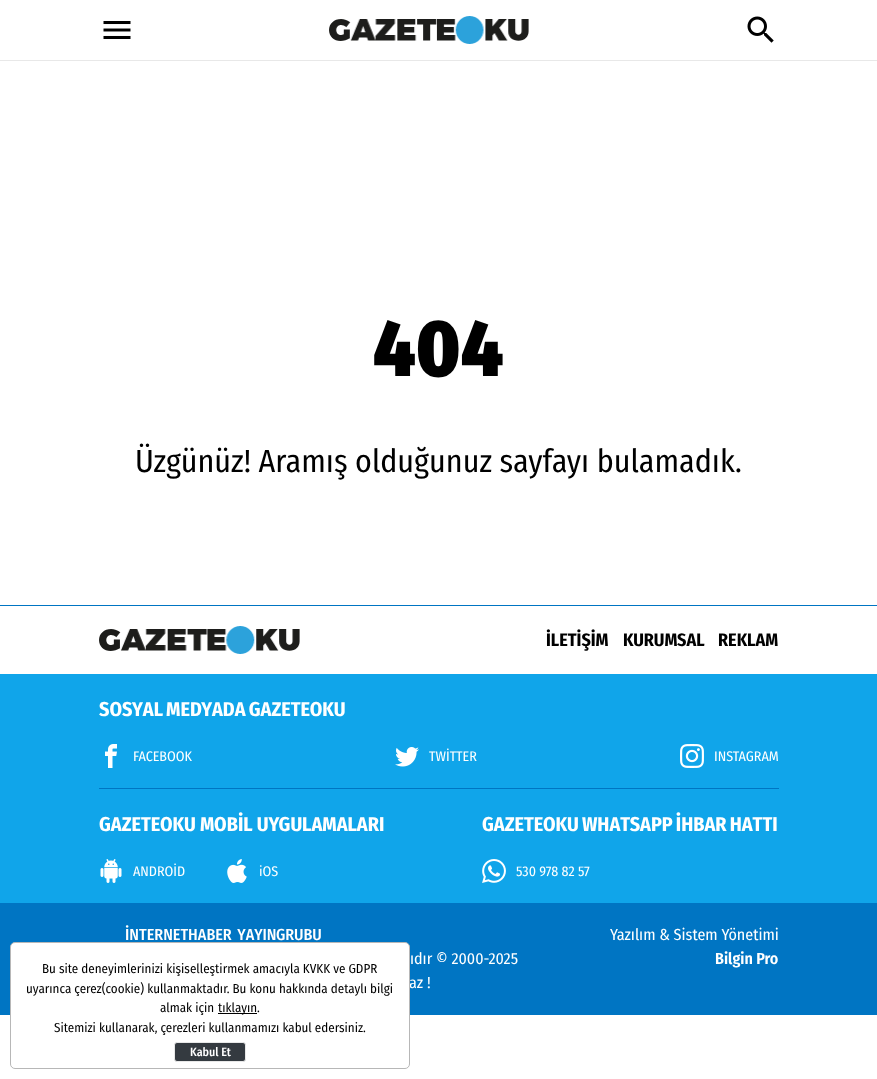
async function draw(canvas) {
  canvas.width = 877
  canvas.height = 1079
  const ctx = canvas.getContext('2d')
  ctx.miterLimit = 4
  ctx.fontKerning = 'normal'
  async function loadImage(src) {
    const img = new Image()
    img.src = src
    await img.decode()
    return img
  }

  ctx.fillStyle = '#fff'
  ctx.fillRect(0, 0, 877, 1079)
  ctx.fillStyle = '#e8e8e8'
  ctx.fillRect(0, 60, 877, 1)
  ctx.drawImage(await loadImage('image0.png'), 103, 21, 28, 18)
  ctx.drawImage(await loadImage('image1.png'), 329, 16, 200, 28)
  ctx.drawImage(await loadImage('image2.png'), 747, 16, 27, 27)
  ctx.font = '900 80px Fira Sans Condensed'
  ctx.fillStyle = '#000'
  ctx.fillText('404', 373, 376)
  ctx.font = '32px Fira Sans Condensed'
  ctx.fillText('Üzgünüz! Aramış olduğunuz sayfayı bulamadık.', 135, 472)
  ctx.fillStyle = '#0075c3'
  ctx.fillRect(0, 605, 877, 1)
  ctx.drawImage(await loadImage('image3.png'), 99, 626, 201, 28)
  ctx.font = 'bold 18px Fira Sans Condensed'
  ctx.fillStyle = '#000'
  ctx.fillText('İLETİŞİM', 546, 646)
  ctx.fillText('KURUMSAL', 623, 646)
  ctx.fillText('REKLAM', 718, 646)
  ctx.fillStyle = '#10a5ea'
  ctx.fillRect(0, 674, 877, 229)
  ctx.fillStyle = '#0075c3'
  ctx.fillRect(99, 788, 680, 1)
  ctx.wordSpacing = '-1px'
  ctx.font = 'bold 20px Fira Sans Condensed'
  ctx.fillStyle = '#fff'
  ctx.fillText('SOSYAL MEDYADA GAZETEOKU', 99, 716)
  ctx.drawImage(await loadImage('image4.png'), 105, 744, 12, 24)
  ctx.wordSpacing = '0px'
  ctx.font = '14px Fira Sans Condensed'
  ctx.fillText('FACEBOOK', 133, 761)
  ctx.drawImage(await loadImage('image5.png'), 395, 747, 24, 20)
  ctx.fillText('TWİTTER', 429, 761)
  ctx.drawImage(await loadImage('image6.png'), 680, 744, 24, 24)
  ctx.fillText('INSTAGRAM', 714, 761)
  ctx.font = 'bold 20px Fira Sans Condensed'
  ctx.fillText('GAZETEOKU MOBİL UYGULAMALARI', 99, 831)
  ctx.drawImage(await loadImage('image7.png'), 100, 859, 22, 24)
  ctx.font = '14px Fira Sans Condensed'
  ctx.fillText('ANDROİD', 133, 876)
  ctx.drawImage(await loadImage('image8.png'), 227, 859, 20, 24)
  ctx.fillText('iOS', 259, 876)
  ctx.wordSpacing = '-1px'
  ctx.font = 'bold 20px Fira Sans Condensed'
  ctx.fillText('GAZETEOKU WHATSAPP İHBAR HATTI', 482, 831)
  ctx.drawImage(await loadImage('image9.png'), 482, 859, 24, 24)
  ctx.wordSpacing = '0px'
  ctx.font = '14px Fira Sans Condensed'
  ctx.fillText('530 978 82 57', 516, 876)
  ctx.fillStyle = '#0075c3'
  ctx.fillRect(0, 903, 877, 112)
  ctx.wordSpacing = '2px'
  ctx.font = '500 16px Fira Sans Condensed'
  ctx.fillStyle = '#fff'
  ctx.fillText('İNTERNETHABER YAYIN', 125, 940)
  ctx.wordSpacing = '0px'
  ctx.fillText('GRUBU', 276, 940)
  ctx.font = '16px Fira Sans Condensed'
  ctx.fillText('ıdır © 2000-2025', 410, 964)
  ctx.fillText('az !', 409, 988)
  ctx.fillText('Yazılım & Sistem Yönetimi', 610, 940)
  ctx.font = '600 16px Fira Sans Condensed'
  ctx.fillText('Bilgin Pro', 715, 964)
  ctx.beginPath()
  ctx.roundRect(10.5, 942.5, 399, 126, 4.5)
  ctx.fill()
  ctx.strokeStyle = '#b7b7b7'
  ctx.stroke()
  ctx.font = '13px Fira Sans Condensed'
  ctx.fillStyle = '#000'
  ctx.fillText('Bu site deneyimlerinizi kişiselleştirmek amacıyla KVKK ve GDPR', 42, 973)
  ctx.fillText('uyarınca çerez(cookie) kullanmaktadır. Bu konu hakkında detaylı bilgi', 26, 993)
  ctx.fillText('almak için', 160, 1012)
  ctx.fillRect(218, 1013, 39, 1)
  ctx.fillText('tıklayın.', 218, 1012)
  ctx.fillText('Sitemizi kullanarak, çerezleri kullanmamızı kabul edersiniz.', 54, 1032)
  ctx.fillStyle = '#343a40'
  ctx.beginPath()
  ctx.roundRect(174.5, 1042.5, 71, 19, 2.5)
  ctx.fill()
  ctx.strokeStyle = '#e8e8e8'
  ctx.stroke()
  ctx.font = '500 12px Fira Sans Condensed'
  ctx.fillStyle = '#fff'
  ctx.fillText('Kabul Et', 190, 1056)
}

draw(document.querySelector('canvas'))
